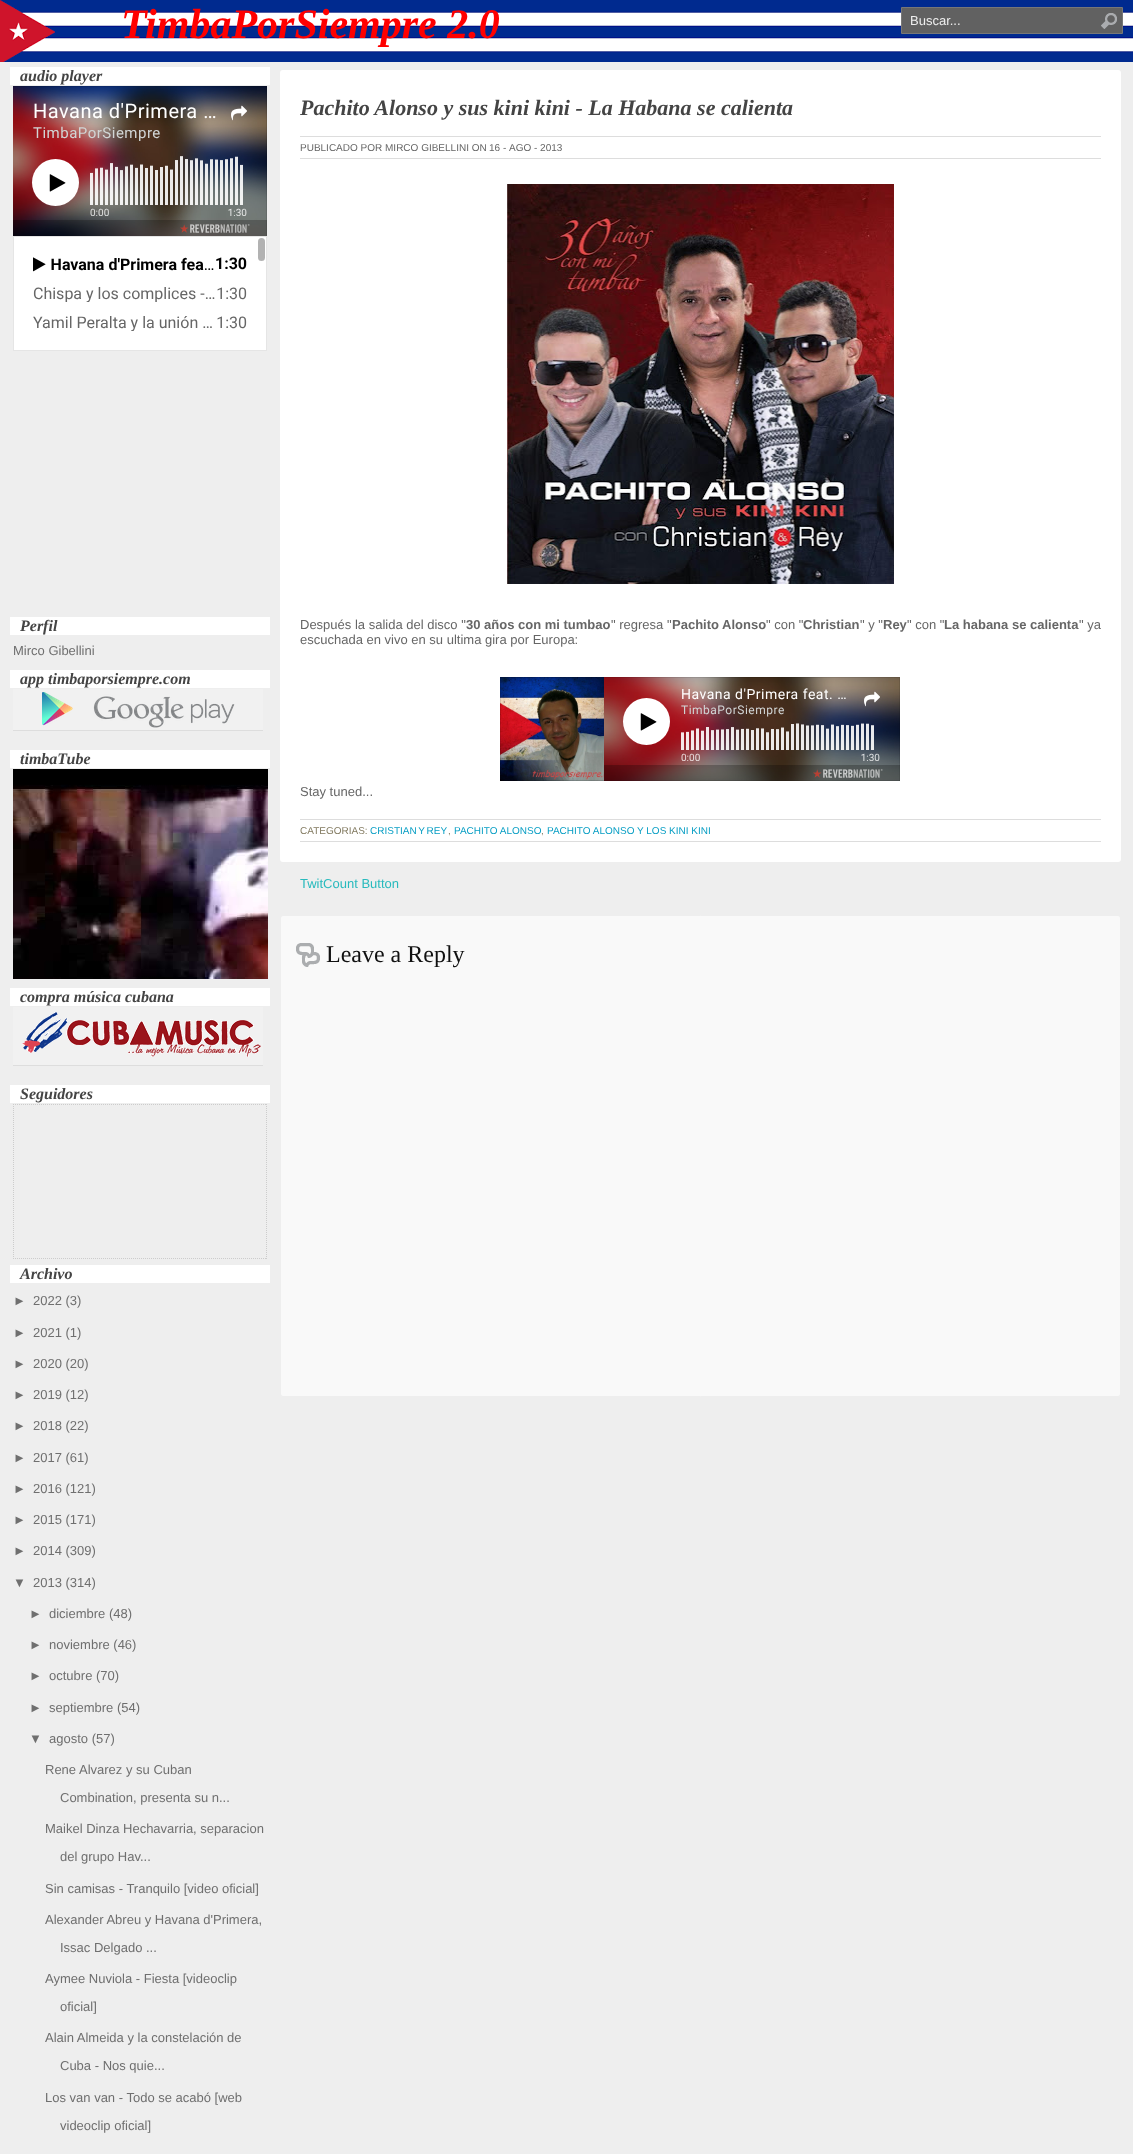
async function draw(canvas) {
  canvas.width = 1133
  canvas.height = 2154
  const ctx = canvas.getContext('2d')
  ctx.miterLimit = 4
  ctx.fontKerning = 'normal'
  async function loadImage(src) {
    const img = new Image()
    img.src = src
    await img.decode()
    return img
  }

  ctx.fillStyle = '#fff'
  ctx.fillRect(0, 0, 1133, 2154)
  ctx.drawImage(await loadImage('image0.png'), 0, 0, 1133, 62)
  ctx.font = 'italic bold 42px Liberation Serif'
  ctx.fillStyle = '#f00'
  ctx.fillText('TimbaPorSiempre 2.0', 121, 38)
  ctx.fillStyle = '#616161'
  ctx.beginPath()
  ctx.rect(901.5, 7.5, 221, 26)
  ctx.fill()
  ctx.strokeStyle = '#777'
  ctx.stroke()
  ctx.font = '13px Liberation Sans'
  ctx.fillStyle = '#eee'
  ctx.fillText('Buscar...', 910, 25)
  ctx.drawImage(await loadImage('image1.png'), 1101, 13, 16, 16)
  ctx.fillRect(0, 62, 1133, 2092)
  ctx.fillStyle = '#fff'
  ctx.fillRect(10, 67, 260, 18)
  ctx.font = 'italic bold 16px Liberation Serif'
  ctx.fillStyle = '#444'
  ctx.fillText('audio player', 20, 81)
  ctx.drawImage(await loadImage('image2.png'), 13, 86, 254, 265)
  ctx.fillStyle = '#fff'
  ctx.fillRect(10, 617, 260, 18)
  ctx.fillStyle = '#444'
  ctx.fillText('Perfil', 20, 631)
  ctx.font = '13px Liberation Sans'
  ctx.fillStyle = '#6f6f6f'
  ctx.fillText('Mirco Gibellini', 13, 655)
  ctx.fillStyle = '#fff'
  ctx.fillRect(10, 670, 260, 18)
  ctx.font = 'italic bold 16px Liberation Serif'
  ctx.fillStyle = '#444'
  ctx.fillText('app timbaporsiempre.com', 20, 684)
  ctx.drawImage(await loadImage('image3.png'), 13, 689, 250, 41)
  ctx.fillStyle = '#ddd'
  ctx.fillRect(13, 730, 250, 1)
  ctx.fillStyle = '#fff'
  ctx.fillRect(10, 750, 260, 18)
  ctx.fillStyle = '#444'
  ctx.fillText('timbaTube', 20, 764)
  ctx.drawImage(await loadImage('image4.png'), 13, 769, 255, 210)
  ctx.fillStyle = '#fff'
  ctx.fillRect(10, 988, 260, 18)
  ctx.fillStyle = '#444'
  ctx.fillText('compra música cubana', 20, 1002)
  ctx.drawImage(await loadImage('image5.png'), 13, 1007, 250, 58)
  ctx.fillStyle = '#ddd'
  ctx.fillRect(13, 1065, 250, 1)
  ctx.fillStyle = '#fff'
  ctx.fillRect(10, 1085, 260, 18)
  ctx.fillStyle = '#444'
  ctx.fillText('Seguidores', 20, 1099)
  ctx.beginPath()
  ctx.moveTo(13, 1104.5)
  ctx.lineTo(267, 1104.5)
  ctx.strokeStyle = '#ccc'
  ctx.setLineDash([1, 1])
  ctx.stroke()
  ctx.beginPath()
  ctx.moveTo(266.5, 1104)
  ctx.lineTo(266.5, 1259)
  ctx.stroke()
  ctx.beginPath()
  ctx.moveTo(13, 1258.5)
  ctx.lineTo(267, 1258.5)
  ctx.stroke()
  ctx.beginPath()
  ctx.moveTo(13.5, 1104)
  ctx.lineTo(13.5, 1259)
  ctx.stroke()
  ctx.fillStyle = '#fff'
  ctx.fillRect(10, 1265, 260, 18)
  ctx.fillStyle = '#444'
  ctx.fillText('Archivo', 20, 1279)
  ctx.font = '13px Liberation Sans'
  ctx.fillStyle = '#6f6f6f'
  ctx.fillText('►', 13, 1305)
  ctx.fillText('2022 (3)', 33, 1305)
  ctx.fillText('►', 13, 1337)
  ctx.fillText('2021 (1)', 33, 1337)
  ctx.fillText('►', 13, 1368)
  ctx.fillText('2020 (20)', 33, 1368)
  ctx.fillText('►', 13, 1399)
  ctx.fillText('2019 (12)', 33, 1399)
  ctx.fillText('►', 13, 1430)
  ctx.fillText('2018 (22)', 33, 1430)
  ctx.fillText('►', 13, 1462)
  ctx.fillText('2017 (61)', 33, 1462)
  ctx.fillText('►', 13, 1493)
  ctx.fillText('2016 (121)', 33, 1493)
  ctx.fillText('►', 13, 1524)
  ctx.fillText('2015 (171)', 33, 1524)
  ctx.fillText('►', 13, 1555)
  ctx.fillText('2014 (309)', 33, 1555)
  ctx.fillText('▼', 13, 1587)
  ctx.fillText('2013 (314)', 33, 1587)
  ctx.fillText('►', 29, 1618)
  ctx.fillText('diciembre (48)', 49, 1618)
  ctx.fillText('►', 29, 1649)
  ctx.fillText('noviembre (46)', 49, 1649)
  ctx.fillText('►', 29, 1680)
  ctx.fillText('octubre (70)', 49, 1680)
  ctx.fillText('►', 29, 1712)
  ctx.fillText('septiembre (54)', 49, 1712)
  ctx.fillText('▼', 29, 1743)
  ctx.fillText('agosto (57)', 49, 1743)
  ctx.fillText('Rene Alvarez y su Cuban', 45, 1774)
  ctx.fillText('Combination, presenta su n...', 60, 1802)
  ctx.fillText('Maikel Dinza Hechavarria, separacion', 45, 1833)
  ctx.fillText('del grupo Hav...', 60, 1861)
  ctx.fillText('Sin camisas - Tranquilo [video oficial]', 45, 1893)
  ctx.fillText('Alexander Abreu y Havana d\'Primera,', 45, 1924)
  ctx.fillText('Issac Delgado ...', 60, 1952)
  ctx.fillText('Aymee Nuviola - Fiesta [videoclip', 45, 1983)
  ctx.fillText('oficial]', 60, 2011)
  ctx.fillText('Alain Almeida y la constelación de', 45, 2042)
  ctx.fillText('Cuba - Nos quie...', 60, 2070)
  ctx.fillText('Los van van - Todo se acabó [web', 45, 2102)
  ctx.fillText('videoclip oficial]', 60, 2130)
  ctx.fillStyle = '#fff'
  ctx.beginPath()
  ctx.roundRect(280, 70, 841, 792, 3)
  ctx.fill()
  ctx.font = 'italic bold 22px Liberation Serif'
  ctx.fillStyle = '#444'
  ctx.fillText('Pachito Alonso y sus kini kini - La Habana se calienta', 300, 115)
  ctx.fillStyle = '#ddd'
  ctx.fillRect(300, 136, 801, 1)
  ctx.fillRect(300, 158, 801, 1)
  ctx.font = '10px Liberation Sans'
  ctx.fillStyle = '#666'
  ctx.fillText('PUBLICADO POR MIRCO GIBELLINI ON', 300, 151)
  ctx.fillText('16 -', 489, 151)
  ctx.fillText('AGO - 2013', 509, 151)
  ctx.drawImage(await loadImage('image6.png'), 507, 184, 387, 400)
  ctx.font = '13px Liberation Sans'
  ctx.fillText('Después la salida del disco "', 300, 629)
  ctx.font = 'bold 13px Liberation Sans'
  ctx.fillText('30 años con mi tumbao', 466, 629)
  ctx.font = '13px Liberation Sans'
  ctx.fillText('" regresa "', 611, 629)
  ctx.font = 'bold 13px Liberation Sans'
  ctx.fillText('Pachito Alonso', 672, 629)
  ctx.font = '13px Liberation Sans'
  ctx.fillText('" con "', 766, 629)
  ctx.font = 'bold 13px Liberation Sans'
  ctx.fillText('Christian', 803, 629)
  ctx.font = '13px Liberation Sans'
  ctx.fillText('" y "', 860, 629)
  ctx.font = 'bold 13px Liberation Sans'
  ctx.fillText('Rey', 883, 629)
  ctx.font = '13px Liberation Sans'
  ctx.fillText('" con "', 907, 629)
  ctx.font = 'bold 13px Liberation Sans'
  ctx.fillText('La habana se calienta', 944, 629)
  ctx.font = '13px Liberation Sans'
  ctx.fillText('" ya', 1079, 629)
  ctx.fillText('escuchada en vivo en su ultima gira por Europa:', 300, 644)
  ctx.drawImage(await loadImage('image7.png'), 500, 677, 400, 104)
  ctx.fillText('Stay tuned...', 300, 796)
  ctx.fillStyle = '#ddd'
  ctx.fillRect(300, 819, 801, 1)
  ctx.fillRect(300, 841, 801, 1)
  ctx.font = '10px Liberation Sans'
  ctx.fillStyle = '#827a60'
  ctx.fillText('CATEGORIAS:', 300, 834)
  ctx.wordSpacing = '-1px'
  ctx.fillStyle = '#089ec4'
  ctx.fillText('CRISTIAN Y REY', 370, 834)
  ctx.wordSpacing = '0px'
  ctx.fillStyle = '#827a60'
  ctx.fillText(',', 448, 834)
  ctx.fillStyle = '#089ec4'
  ctx.fillText('PACHITO ALONSO', 454, 834)
  ctx.fillStyle = '#827a60'
  ctx.fillText(',', 541, 834)
  ctx.fillStyle = '#089ec4'
  ctx.fillText('PACHITO ALONSO Y LOS KINI KINI', 547, 834)
  ctx.font = '13px Liberation Sans'
  ctx.fillStyle = '#28babd'
  ctx.fillText('TwitCount Button', 300, 888)
  ctx.fillStyle = '#f9f9f9'
  ctx.beginPath()
  ctx.roundRect(280.5, 915.5, 840, 481, 2.5)
  ctx.fill()
  ctx.strokeStyle = '#eee'
  ctx.setLineDash([])
  ctx.stroke()
  ctx.drawImage(await loadImage('image8.png'), 296, 943, 24, 24)
  ctx.font = '24px Liberation Serif'
  ctx.fillStyle = '#111'
  ctx.fillText('Leave a Reply', 326, 962)
}

draw(document.querySelector('canvas'))
